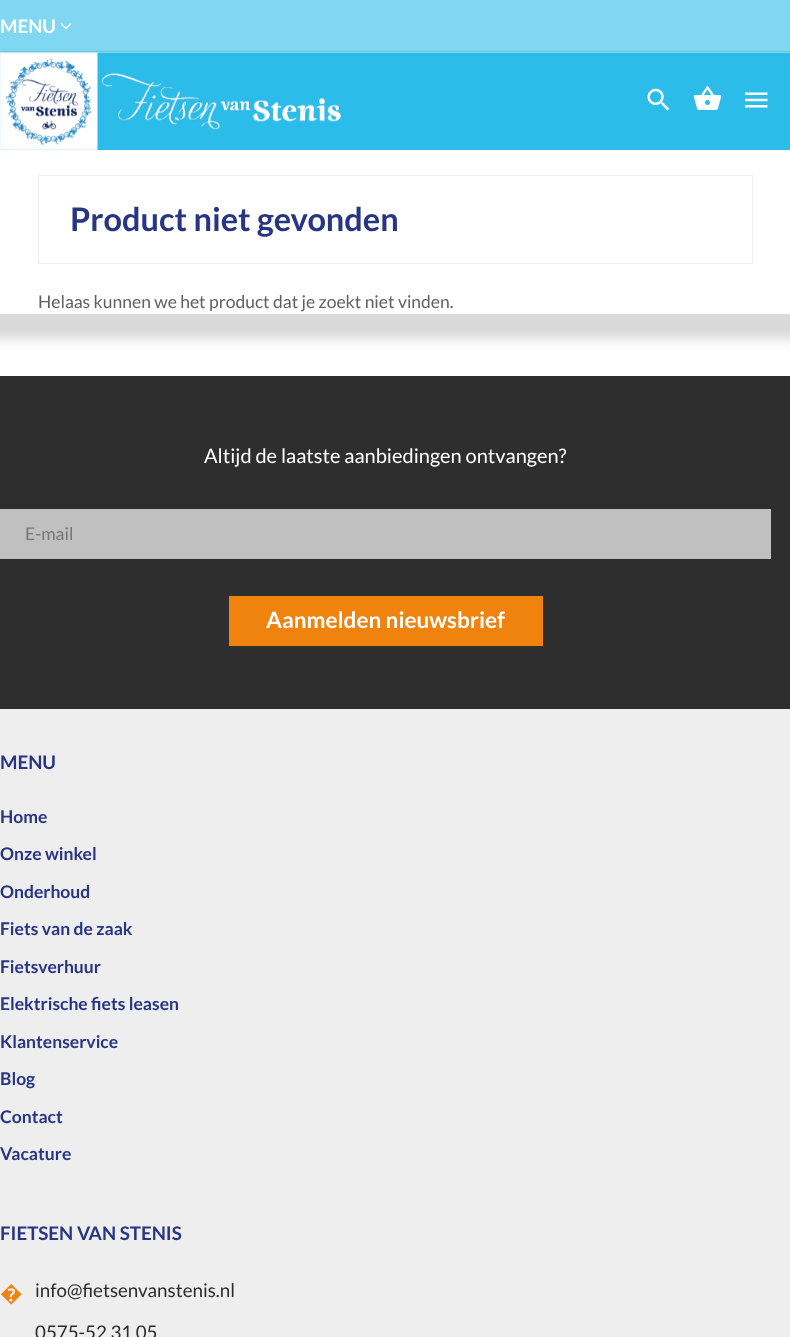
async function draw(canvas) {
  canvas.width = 790
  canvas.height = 1337
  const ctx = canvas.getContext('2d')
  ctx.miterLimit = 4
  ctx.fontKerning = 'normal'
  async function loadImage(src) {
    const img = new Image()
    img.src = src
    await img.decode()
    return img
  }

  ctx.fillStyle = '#fff'
  ctx.fillRect(0, 0, 790, 1337)
  ctx.fillStyle = '#00000026'
  ctx.filter = 'blur(6px)'
  ctx.beginPath()
  ctx.rect(-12, 150, 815, 189)
  ctx.fill()
  ctx.filter = 'none'
  ctx.fillStyle = '#2bbcea'
  ctx.fillRect(0, 53, 790, 97)
  ctx.fillStyle = '#80d7f2'
  ctx.fillRect(0, 0, 790, 53)
  ctx.fillStyle = '#73c2da'
  ctx.fillRect(0, 51, 790, 1)
  ctx.font = 'bold 18.75px Lato'
  ctx.fillStyle = '#fff'
  ctx.fillText('MENU', 0, 33)
  ctx.drawImage(await loadImage('image0.png'), 60, 23, 12, 7)
  ctx.drawImage(await loadImage('image1.png'), 0, 52, 341, 98)
  ctx.drawImage(await loadImage('image2.png'), 647, 88, 23, 23)
  ctx.drawImage(await loadImage('image3.png'), 693, 86, 29, 24)
  ctx.drawImage(await loadImage('image4.png'), 745, 92, 23, 16)
  ctx.fillRect(0, 150, 790, 164)
  ctx.strokeStyle = '#eee'
  ctx.strokeRect(38.5, 175.5, 714, 88)
  ctx.font = 'bold 32.5px Lato'
  ctx.fillStyle = '#273583'
  ctx.fillText('Product niet gevonden', 70, 231)
  ctx.font = '17.5px Lato'
  ctx.fillStyle = '#5e6062'
  ctx.fillText('Helaas kunnen we het product dat je zoekt niet vinden.', 38, 308)
  ctx.fillStyle = '#2e2e2e'
  ctx.fillRect(0, 376, 790, 333)
  ctx.font = '20px Lato'
  ctx.fillStyle = '#fff'
  ctx.fillText('Altijd de laatste aanbiedingen ontvangen?', 204, 463)
  ctx.fillStyle = '#c0c0c0'
  ctx.fillRect(0, 509, 771, 50)
  ctx.font = '17.5px Lato'
  ctx.fillStyle = '#757575'
  ctx.fillText('E-mail', 25, 540)
  ctx.fillStyle = '#f0820e'
  ctx.fillRect(229, 596, 314, 50)
  ctx.font = 'bold 22.5px Lato'
  ctx.fillStyle = '#fff'
  ctx.fillText('Aanmelden nieuwsbrief', 266, 628)
  ctx.fillStyle = '#eee'
  ctx.fillRect(0, 709, 790, 628)
  ctx.font = 'bold 18.75px Lato'
  ctx.fillStyle = '#273583'
  ctx.fillText('MENU', 0, 769)
  ctx.font = 'bold 17.5px Lato'
  ctx.fillText('Home', 0, 823)
  ctx.fillText('Onze winkel', 0, 860)
  ctx.fillText('Onderhoud', 0, 898)
  ctx.fillText('Fiets van de zaak', 0, 935)
  ctx.fillText('Fietsverhuur', 0, 973)
  ctx.fillText('Elektrische fiets leasen', 0, 1010)
  ctx.fillText('Klantenservice', 0, 1048)
  ctx.fillText('Blog', 0, 1085)
  ctx.fillText('Contact', 0, 1123)
  ctx.fillText('Vacature', 0, 1160)
  ctx.font = 'bold 18.75px Lato'
  ctx.fillText('FIETSEN VAN STENIS', 0, 1240)
  ctx.font = '22.5px Noto Sans'
  ctx.fillStyle = '#f0820e'
  ctx.fillText('�', 0, 1301)
  ctx.font = '18.75px Lato'
  ctx.fillStyle = '#2b2b2b'
  ctx.fillText('info@fietsenvanstenis.nl', 35, 1297)
  ctx.fillText('0575-52 31 05', 35, 1339)
}

draw(document.querySelector('canvas'))
